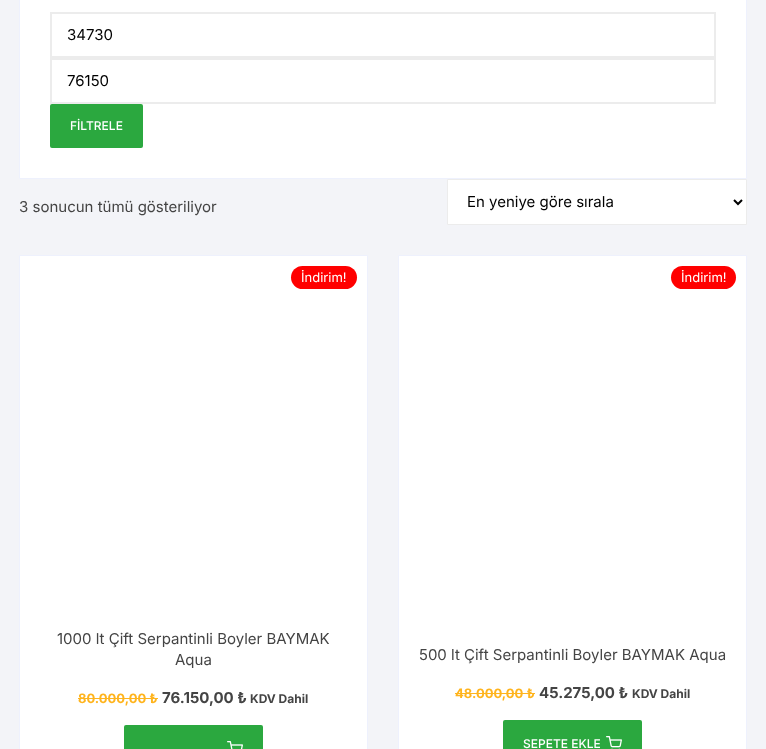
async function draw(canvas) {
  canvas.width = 766
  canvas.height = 749
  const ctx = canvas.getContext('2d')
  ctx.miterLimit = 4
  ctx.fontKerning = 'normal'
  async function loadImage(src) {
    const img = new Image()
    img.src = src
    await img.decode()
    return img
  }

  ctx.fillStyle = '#f3f4f8'
  ctx.fillRect(0, 0, 766, 749)
  ctx.fillStyle = '#fff'
  ctx.beginPath()
  ctx.rect(19.5, -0.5, 727, 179)
  ctx.fill()
  ctx.strokeStyle = '#eef1fd'
  ctx.stroke()
  ctx.strokeStyle = '#ececec'
  ctx.lineWidth = 2
  ctx.strokeRect(51, 13, 664, 44)
  ctx.font = '15px Inter'
  ctx.fillStyle = '#000'
  ctx.fillText('34730', 67, 40)
  ctx.strokeRect(51, 59, 664, 44)
  ctx.fillText('76150', 67, 86)
  ctx.fillStyle = '#2ba83f'
  ctx.beginPath()
  ctx.roundRect(50, 104, 93, 44, 2)
  ctx.fill()
  ctx.font = '500 12px Inter'
  ctx.fillStyle = '#fff'
  ctx.fillText('FİLTRELE', 70, 130)
  ctx.font = '15px Inter'
  ctx.fillStyle = '#444'
  ctx.fillText('3 sonucun tümü gösteriliyor', 19, 212)
  ctx.fillStyle = '#fff'
  ctx.beginPath()
  ctx.rect(447.5, 179.5, 299, 45)
  ctx.fill()
  ctx.lineWidth = 1
  ctx.stroke()
  ctx.beginPath()
  ctx.moveTo(734, 200)
  ctx.lineTo(738, 204)
  ctx.lineTo(742, 200)
  ctx.strokeStyle = '#000'
  ctx.lineWidth = 2
  ctx.stroke()
  ctx.fillStyle = '#000'
  ctx.fillText('En yeniye göre sırala', 467, 207)
  ctx.fillStyle = '#fff'
  ctx.beginPath()
  ctx.rect(19.5, 255.5, 348, 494)
  ctx.fill()
  ctx.strokeStyle = '#eef1fd'
  ctx.lineWidth = 1
  ctx.stroke()
  ctx.fillStyle = '#f00'
  ctx.beginPath()
  ctx.roundRect(291, 266, 66, 23, 11.5)
  ctx.fill()
  ctx.font = '13px Inter'
  ctx.fillStyle = '#fff'
  ctx.fillText('İndirim!', 301, 282)
  ctx.font = '15px Inter'
  ctx.fillStyle = '#444'
  ctx.fillText('1000 lt Çift Serpantinli Boyler BAYMAK', 57, 644)
  ctx.fillText('Aqua', 175, 665)
  ctx.font = 'bold 13px Inter'
  ctx.fillStyle = '#ffb41d'
  ctx.fillText('80.000,00 ₺', 78, 703)
  ctx.fillRect(78, 698, 80, 1)
  ctx.font = 'bold 15px Inter'
  ctx.fillStyle = '#444'
  ctx.fillText('76.150,00 ₺', 162, 703)
  ctx.font = 'bold 12px Inter'
  ctx.fillText('KDV Dahil', 250, 703)
  ctx.fillStyle = '#2ba83f'
  ctx.beginPath()
  ctx.roundRect(124, 725, 139, 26, 2)
  ctx.fill()
  ctx.drawImage(await loadImage('image0.png'), 227, 741, 16, 8)
  ctx.fillStyle = '#fff'
  ctx.beginPath()
  ctx.rect(398.5, 255.5, 348, 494)
  ctx.fill()
  ctx.stroke()
  ctx.fillStyle = '#f00'
  ctx.beginPath()
  ctx.roundRect(671, 266, 65, 23, 11.5)
  ctx.fill()
  ctx.font = '13px Inter'
  ctx.fillStyle = '#fff'
  ctx.fillText('İndirim!', 681, 282)
  ctx.font = '15px Inter'
  ctx.fillStyle = '#444'
  ctx.fillText('500 lt Çift Serpantinli Boyler BAYMAK Aqua', 419, 660)
  ctx.font = 'bold 13px Inter'
  ctx.fillStyle = '#ffb41d'
  ctx.fillText('48.000,00 ₺', 455, 698)
  ctx.fillRect(455, 693, 80, 1)
  ctx.font = 'bold 15px Inter'
  ctx.fillStyle = '#444'
  ctx.fillText('45.275,00 ₺', 539, 698)
  ctx.font = 'bold 12px Inter'
  ctx.fillText('KDV Dahil', 632, 698)
  ctx.fillStyle = '#2ba83f'
  ctx.beginPath()
  ctx.roundRect(503, 720, 139, 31, 2)
  ctx.fill()
  ctx.font = '500 12px Inter'
  ctx.fillStyle = '#fff'
  ctx.fillText('SEPETE EKLE', 523, 748)
  ctx.drawImage(await loadImage('image1.png'), 606, 736, 16, 13)
}

draw(document.querySelector('canvas'))
